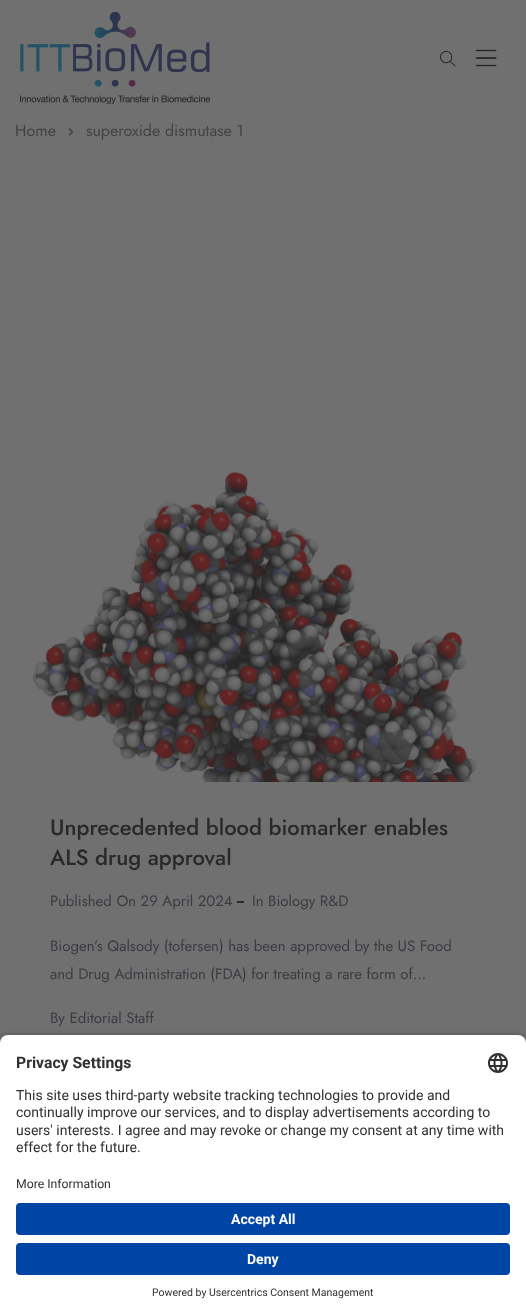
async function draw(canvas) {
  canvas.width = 526
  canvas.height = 1315
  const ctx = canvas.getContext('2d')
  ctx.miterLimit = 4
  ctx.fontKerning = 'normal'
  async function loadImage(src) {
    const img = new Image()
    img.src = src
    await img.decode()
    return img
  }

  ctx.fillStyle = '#707070'
  ctx.fillRect(0, 0, 526, 1315)
  ctx.drawImage(await loadImage('image0.png'), 20, 12, 190, 92)
  ctx.drawImage(await loadImage('image1.png'), 440, 51, 16, 16)
  ctx.drawImage(await loadImage('image2.png'), 475, 49, 22, 18)
  ctx.font = '16px Jost'
  ctx.fillStyle = '#434343'
  ctx.fillText('Home', 15, 136)
  ctx.drawImage(await loadImage('image3.png'), 68, 127, 6, 9)
  ctx.fillText('superoxide dismutase 1', 86, 136)
  ctx.drawImage(await loadImage('image4.png'), 15, 454, 496, 5)
  ctx.drawImage(await loadImage('image5.png'), 15, 454, 496, 328)
  ctx.font = '500 22px Jost'
  ctx.fillStyle = '#292929'
  ctx.fillText('Unprecedented blood biomarker enables', 50, 835)
  ctx.fillText('ALS drug approval', 50, 865)
  ctx.font = '15px Jost'
  ctx.fillStyle = '#3a3c42'
  ctx.fillText('Published On 29 April 2024', 50, 906)
  ctx.fillStyle = '#2b2c32'
  ctx.fillRect(237, 901, 7, 2)
  ctx.fillStyle = '#3a3c42'
  ctx.fillText('In Biology R&D', 252, 906)
  ctx.fillText('Biogen’s Qalsody (tofersen) has been approved by the US Food', 50, 951)
  ctx.fillText('and Drug Administration (FDA) for treating a rare form of...', 50, 979)
  ctx.fillText('By Editorial Staff', 50, 1023)
  ctx.fillStyle = '#000000cc'
  ctx.filter = 'blur(3.5px)'
  ctx.beginPath()
  ctx.roundRect(0, 1038, 526, 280, 8)
  ctx.fill()
  ctx.filter = 'none'
  ctx.fillStyle = '#fff'
  ctx.beginPath()
  ctx.roundRect(0, 1035, 526, 142, [8, 8, 0, 0])
  ctx.fill()
  ctx.font = 'bold 15.75px Roboto'
  ctx.fillStyle = '#303030'
  ctx.fillText('Privacy Settings', 16, 1068)
  ctx.drawImage(await loadImage('image6.png'), 488, 1053, 20, 20)
  ctx.font = '14px Roboto'
  ctx.fillText('This site uses third-party website tracking technologies to provide and', 16, 1100)
  ctx.fillText('continually improve our services, and to display advertisements according to', 16, 1117)
  ctx.fillText('users\' interests. I agree and may revoke or change my consent at any time with', 16, 1135)
  ctx.fillText('effect for the future.', 16, 1152)
  ctx.fillStyle = '#fff'
  ctx.fillRect(0, 1177, 526, 138)
  ctx.font = '12.25px Roboto'
  ctx.fillStyle = '#303030'
  ctx.fillText('More Information', 16, 1188)
  ctx.fillStyle = '#0045a5'
  ctx.beginPath()
  ctx.roundRect(16, 1203, 494, 32, 4)
  ctx.fill()
  ctx.font = 'bold 14px Roboto'
  ctx.fillStyle = '#fafafa'
  ctx.fillText('Accept All', 231, 1224)
  ctx.fillStyle = '#0045a5'
  ctx.beginPath()
  ctx.roundRect(16, 1243, 494, 32, 4)
  ctx.fill()
  ctx.fillStyle = '#fafafa'
  ctx.fillText('Deny', 247, 1264)
  ctx.font = '10.5px Roboto'
  ctx.fillStyle = '#303030'
  ctx.fillText('Powered by Usercentrics Consent Management', 152, 1296)
}

draw(document.querySelector('canvas'))
